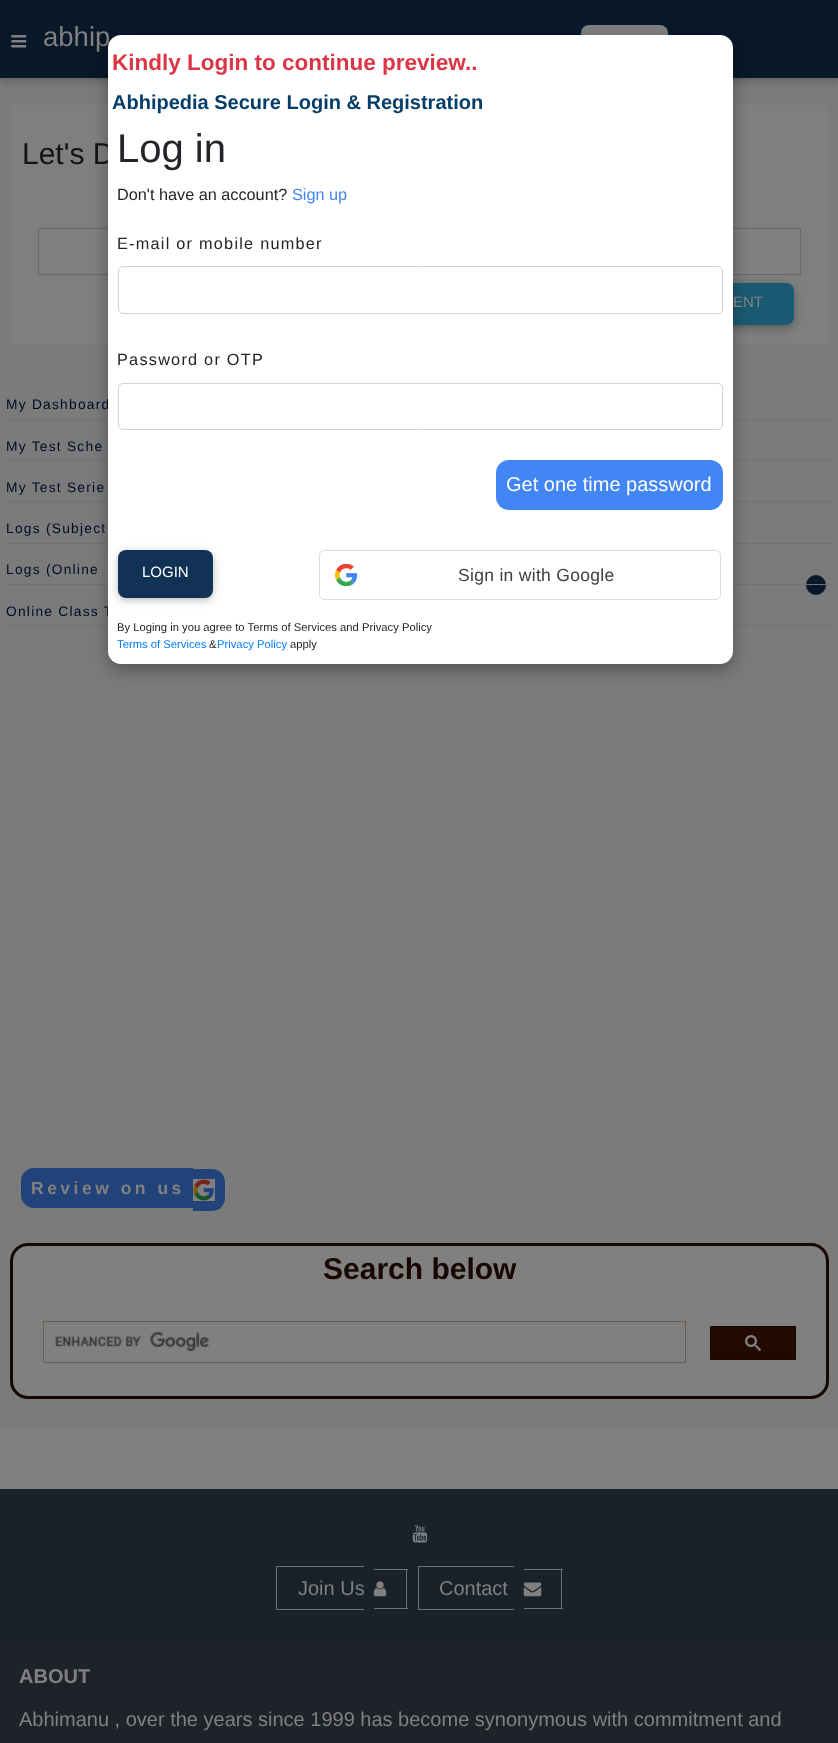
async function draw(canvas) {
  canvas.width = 838
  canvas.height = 1743
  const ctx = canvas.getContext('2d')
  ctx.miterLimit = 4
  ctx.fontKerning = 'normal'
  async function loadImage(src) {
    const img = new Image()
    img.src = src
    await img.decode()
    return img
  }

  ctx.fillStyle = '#7b7b7c'
  ctx.fillRect(0, 0, 838, 1743)
  ctx.fillStyle = '#0000001f'
  ctx.filter = 'blur(6px)'
  ctx.beginPath()
  ctx.rect(0, 3, 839, 77)
  ctx.fill()
  ctx.filter = 'none'
  ctx.fillStyle = '#00000029'
  ctx.filter = 'blur(3px)'
  ctx.beginPath()
  ctx.rect(0, 3, 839, 77)
  ctx.fill()
  ctx.filter = 'none'
  ctx.fillStyle = '#09192a'
  ctx.fillRect(0, 0, 838, 78)
  ctx.drawImage(await loadImage('image0.png'), 11, 35, 16, 13)
  ctx.font = '27.5px Liberation Sans'
  ctx.fillStyle = '#808080'
  ctx.fillText('abhip', 43, 46)
  ctx.beginPath()
  ctx.roundRect(581, 25, 87, 34, 8)
  ctx.fill()
  ctx.fillStyle = '#7e7f7f'
  ctx.beginPath()
  ctx.roundRect(11, 105, 817, 239, 5)
  ctx.fill()
  ctx.strokeStyle = '#676a6d'
  ctx.strokeRect(38.5, 228.5, 762, 46)
  ctx.fillStyle = '#0000001f'
  ctx.filter = 'blur(6px)'
  ctx.beginPath()
  ctx.roundRect(588, 285, 206, 43, 8)
  ctx.fill()
  ctx.filter = 'none'
  ctx.fillStyle = '#00000029'
  ctx.filter = 'blur(3px)'
  ctx.beginPath()
  ctx.roundRect(588, 285, 206, 43, 8)
  ctx.fill()
  ctx.filter = 'none'
  ctx.fillStyle = '#1a5b73'
  ctx.beginPath()
  ctx.roundRect(588, 283, 206, 42, 8)
  ctx.fill()
  ctx.fillStyle = '#6f7173'
  ctx.fillRect(6, 419, 827, 1)
  ctx.fillRect(6, 460, 827, 1)
  ctx.fillRect(6, 501, 827, 1)
  ctx.fillRect(6, 543, 827, 1)
  ctx.fillStyle = '#09192a'
  ctx.beginPath()
  ctx.arc(816, 585, 10, 0, 2 * Math.PI)
  ctx.fill()
  ctx.fillStyle = '#6f7173'
  ctx.fillRect(6, 584, 827, 1)
  ctx.fillRect(6, 625, 827, 1)
  ctx.fillStyle = '#00000026'
  ctx.filter = 'blur(9.5px)'
  ctx.beginPath()
  ctx.roundRect(108, 40, 625, 629, 13)
  ctx.fill()
  ctx.filter = 'none'
  ctx.fillStyle = '#0000002e'
  ctx.filter = 'blur(7px)'
  ctx.beginPath()
  ctx.roundRect(108, 41, 625, 629, 13)
  ctx.fill()
  ctx.filter = 'none'
  ctx.font = '30px Liberation Sans'
  ctx.fillStyle = '#111315'
  ctx.fillText('Let\'s D', 22, 164)
  ctx.letterSpacing = '1.25px'
  ctx.font = '13.75px Liberation Sans'
  ctx.fillStyle = '#000b23'
  ctx.fillText('My Dashboard', 6, 409)
  ctx.fillText('Online Class T', 6, 616)
  ctx.fillStyle = '#fff'
  ctx.beginPath()
  ctx.roundRect(108, 35, 625, 629, 13)
  ctx.fill()
  ctx.letterSpacing = '0px'
  ctx.font = 'bold 22.5px Liberation Sans'
  ctx.fillStyle = '#dc3545'
  ctx.fillText('Kindly Login to continue preview..', 112, 70)
  ctx.font = 'bold 20px Liberation Sans'
  ctx.fillStyle = '#043e68'
  ctx.fillText('Abhipedia Secure Login & Registration', 112, 109)
  ctx.font = '40px Liberation Sans'
  ctx.fillStyle = '#212529'
  ctx.fillText('Log in', 117, 162)
  ctx.font = '16.25px Liberation Sans'
  ctx.fillText('Don\'t have an account?', 117, 200)
  ctx.fillStyle = '#4285f4'
  ctx.fillText('Sign up', 292, 200)
  ctx.letterSpacing = '1.25px'
  ctx.fillStyle = '#212529'
  ctx.fillText('E-mail or mobile number', 117, 249)
  ctx.beginPath()
  ctx.roundRect(118.5, 266.5, 604, 47, 4.5)
  ctx.strokeStyle = '#ced4da'
  ctx.stroke()
  ctx.fillText('Password or OTP', 117, 365)
  ctx.beginPath()
  ctx.roundRect(118.5, 383.5, 604, 46, 4.5)
  ctx.stroke()
  ctx.fillStyle = '#4285f4'
  ctx.beginPath()
  ctx.roundRect(496, 460, 227, 50, 13)
  ctx.fill()
  ctx.letterSpacing = '0px'
  ctx.font = '20px Liberation Sans'
  ctx.fillStyle = '#fff'
  ctx.fillText('Get one time password', 506, 491)
  ctx.fillStyle = '#0000001f'
  ctx.filter = 'blur(6px)'
  ctx.beginPath()
  ctx.roundRect(118, 553, 95, 47, 8)
  ctx.fill()
  ctx.filter = 'none'
  ctx.fillStyle = '#00000029'
  ctx.filter = 'blur(3px)'
  ctx.beginPath()
  ctx.roundRect(118, 553, 95, 47, 8)
  ctx.fill()
  ctx.filter = 'none'
  ctx.fillStyle = '#113254'
  ctx.beginPath()
  ctx.roundRect(118, 550, 95, 48, 8)
  ctx.fill()
  ctx.font = '15px Liberation Sans'
  ctx.fillStyle = '#fff'
  ctx.fillText('LOGIN', 142, 577)
  ctx.beginPath()
  ctx.roundRect(319.5, 550.5, 401, 49, 4.5)
  ctx.strokeStyle = '#dadce0'
  ctx.stroke()
  ctx.drawImage(await loadImage('image1.png'), 335, 564, 22, 22)
  ctx.letterSpacing = '0.3px'
  ctx.font = '17.5px Liberation Sans'
  ctx.fillStyle = '#3c4043'
  ctx.fillText('Sign in with Google', 458, 581)
  ctx.letterSpacing = '0px'
  ctx.font = '11.25px Liberation Sans'
  ctx.fillStyle = '#212529'
  ctx.fillText('By Loging in you agree to Terms of Services and Privacy Policy', 117, 631)
  ctx.fillStyle = '#007bff'
  ctx.fillText('Terms of Services', 117, 648)
  ctx.fillStyle = '#212529'
  ctx.fillText('&', 209, 648)
  ctx.fillStyle = '#007bff'
  ctx.fillText('Privacy Policy', 217, 648)
  ctx.fillStyle = '#212529'
  ctx.fillText('apply', 290, 648)
  ctx.font = '15px Liberation Sans'
  ctx.fillStyle = '#808080'
  ctx.fillText('ENT', 733, 307)
  ctx.letterSpacing = '1.25px'
  ctx.font = '13.75px Liberation Sans'
  ctx.fillStyle = '#000b23'
  ctx.fillText('My Test Sche', 6, 451)
  ctx.fillText('My Test Serie', 6, 492)
  ctx.fillText('Logs (Subject', 6, 533)
  ctx.fillText('Logs (Online', 6, 574)
  ctx.fillStyle = '#21437a'
  ctx.beginPath()
  ctx.roundRect(21, 1168, 172, 40, [13, 0, 0, 13])
  ctx.fill()
  ctx.letterSpacing = '3.5px'
  ctx.font = 'bold 17.5px Liberation Sans'
  ctx.fillStyle = '#808080'
  ctx.fillText('Review on us', 31, 1194)
  ctx.fillStyle = '#21437a'
  ctx.beginPath()
  ctx.roundRect(193, 1169, 32, 42, [0, 13, 13, 0])
  ctx.fill()
  ctx.fillStyle = '#808080'
  ctx.fillRect(193, 1179, 22, 22)
  ctx.drawImage(await loadImage('image2.png'), 193, 1179, 21, 22)
  ctx.beginPath()
  ctx.roundRect(11.5, 1244.5, 816, 153, 16.5)
  ctx.fill()
  ctx.strokeStyle = '#180700'
  ctx.lineWidth = 3
  ctx.stroke()
  ctx.letterSpacing = '0px'
  ctx.font = 'bold 30px Liberation Sans'
  ctx.fillStyle = '#180700'
  ctx.fillText('Search below', 323, 1279)
  ctx.strokeStyle = '#6a5e51'
  ctx.lineWidth = 1
  ctx.strokeRect(43.5, 1321.5, 642, 41)
  ctx.drawImage(await loadImage('image3.png'), 55, 1332, 154, 19)
  ctx.fillStyle = '#230900'
  ctx.beginPath()
  ctx.rect(710.5, 1326.5, 85, 33)
  ctx.fill()
  ctx.strokeStyle = '#180700'
  ctx.stroke()
  ctx.drawImage(await loadImage('image4.png'), 745, 1335, 16, 16)
  ctx.fillStyle = '#808080'
  ctx.fillRect(0, 1429, 838, 60)
  ctx.fillStyle = '#1f2329'
  ctx.fillRect(0, 1644, 838, 99)
  ctx.fillStyle = '#192129'
  ctx.fillRect(0, 1489, 838, 155)
  ctx.drawImage(await loadImage('image5.png'), 412, 1525, 16, 18)
  ctx.fillStyle = '#6f7173'
  ctx.fillRect(276, 1566, 88, 1)
  ctx.fillRect(276, 1609, 88, 1)
  ctx.fillRect(276, 1566, 1, 44)
  ctx.fillRect(374, 1569, 34, 1)
  ctx.fillRect(406, 1569, 1, 40)
  ctx.fillRect(374, 1608, 34, 1)
  ctx.font = '20px Liberation Sans'
  ctx.fillStyle = '#808080'
  ctx.fillText('Join Us', 298, 1595)
  ctx.drawImage(await loadImage('image6.png'), 373, 1581, 14, 16)
  ctx.fillStyle = '#6f7173'
  ctx.fillRect(418, 1566, 96, 1)
  ctx.fillRect(418, 1609, 96, 1)
  ctx.fillRect(418, 1566, 1, 44)
  ctx.fillRect(524, 1569, 39, 1)
  ctx.fillRect(561, 1569, 1, 40)
  ctx.fillRect(524, 1608, 39, 1)
  ctx.fillStyle = '#808080'
  ctx.fillText('Contact', 439, 1595)
  ctx.drawImage(await loadImage('image7.png'), 523, 1582, 19, 15)
  ctx.font = 'bold 20px Liberation Sans'
  ctx.fillText('ABOUT', 19, 1683)
  ctx.font = '20px Liberation Sans'
  ctx.fillText('Abhimanu , over the years since 1999 has become synonymous with commitment and', 19, 1726)
}

draw(document.querySelector('canvas'))
